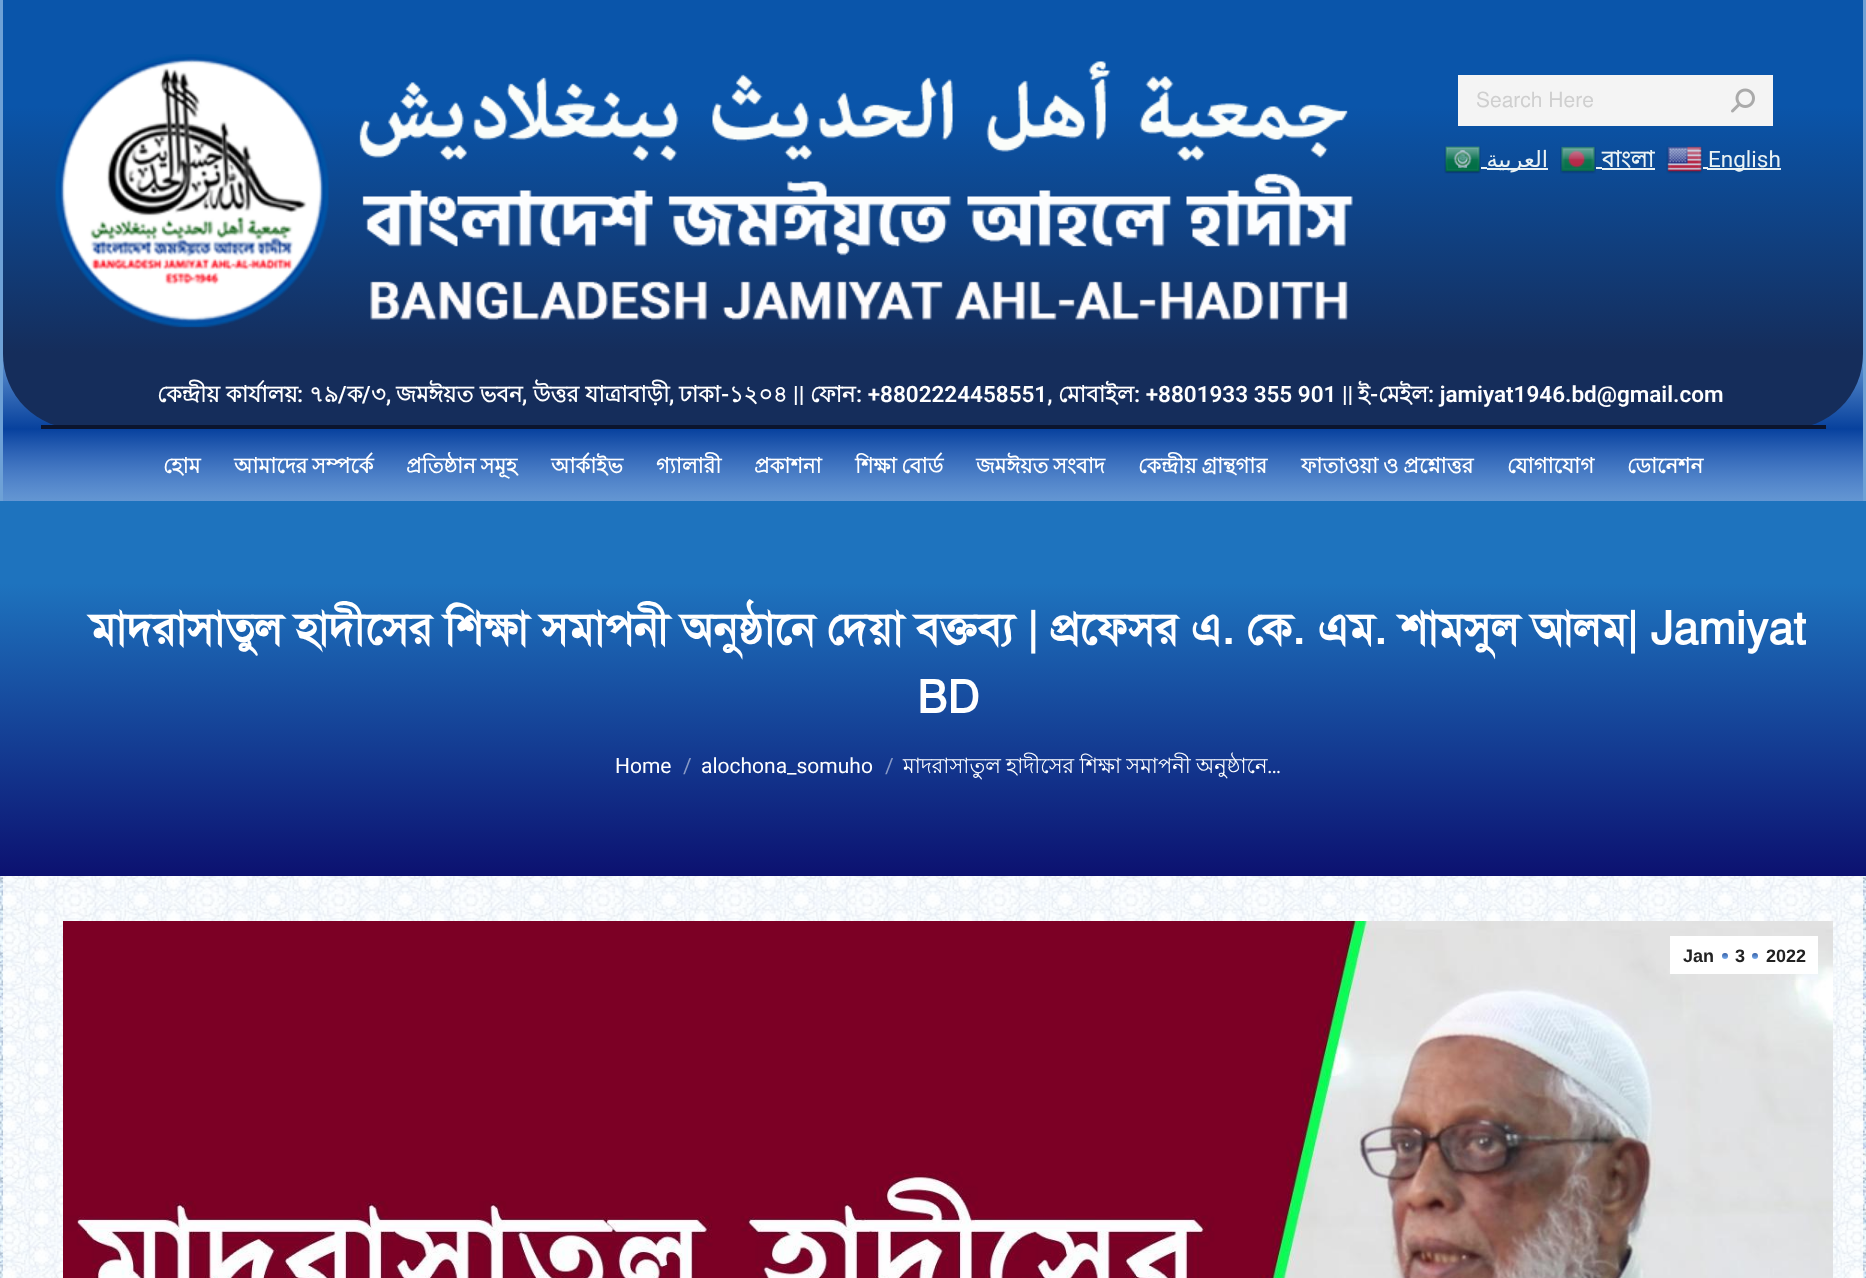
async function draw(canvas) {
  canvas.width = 1866
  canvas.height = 1278
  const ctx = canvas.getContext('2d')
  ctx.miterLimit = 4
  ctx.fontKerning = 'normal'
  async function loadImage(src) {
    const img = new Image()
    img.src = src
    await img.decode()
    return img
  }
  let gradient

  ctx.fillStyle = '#fff'
  ctx.fillRect(0, 0, 1866, 1278)
  ctx.drawImage(await loadImage('image0.png'), 0, 876, 1866, 402)
  ctx.fillStyle = '#6ea1d6'
  ctx.fillRect(0, 0, 1866, 501)
  gradient = ctx.createLinearGradient(96, 354, 96, 429)
  gradient.addColorStop(0, '#6496d2')
  gradient.addColorStop(1, '#07419d')
  ctx.fillStyle = gradient
  ctx.fillRect(3, 354, 51, 75)
  gradient = ctx.createLinearGradient(1770, 354, 1770, 429)
  gradient.addColorStop(0, '#6496d2')
  gradient.addColorStop(1, '#07419d')
  ctx.fillStyle = gradient
  ctx.fillRect(1812, 354, 51, 75)
  ctx.save()
  ctx.beginPath()
  ctx.roundRect(3, 0, 1860, 429, [0, 0, 75, 75])
  ctx.clip()
  gradient = ctx.createLinearGradient(933, 0, 933, 425)
  gradient.addColorStop(0.25, '#0a55aa')
  gradient.addColorStop(0.83, '#152d5b')
  ctx.fillStyle = gradient
  ctx.fillRect(3, 0, 1860, 425)
  ctx.restore()
  ctx.fillStyle = '#f4f4f4'
  ctx.fillRect(1458, 75, 315, 51)
  ctx.font = '21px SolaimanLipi'
  ctx.fillStyle = '#cfcfcf'
  ctx.fillText('Search Here', 1476, 107)
  ctx.drawImage(await loadImage('image1.png'), 1731, 88, 24, 25)
  ctx.drawImage(await loadImage('image2.png'), 1444, 146, 37, 28)
  ctx.fillStyle = '#ebf3f4'
  ctx.fillRect(1487, 168, 61, 2)
  ctx.direction = 'rtl'
  ctx.font = '22.5px DejaVu Sans'
  ctx.fillText('العربية', 1548, 167)
  ctx.fillRect(1481, 167, 6, 2)
  ctx.drawImage(await loadImage('image3.png'), 1560, 146, 36, 28)
  ctx.fillRect(1596, 167, 6, 2)
  ctx.direction = 'ltr'
  ctx.font = 'bold 22.5px Lohit Bengali'
  ctx.fillText('বাংলা', 1602, 167)
  ctx.fillRect(1602, 168, 53, 2)
  ctx.drawImage(await loadImage('image4.png'), 1666, 146, 37, 28)
  ctx.fillRect(1703, 167, 5, 2)
  ctx.fillRect(1707, 168, 74, 2)
  ctx.font = '22.5px Roboto'
  ctx.fillText('English', 1708, 167)
  ctx.fillStyle = '#0b142d'
  ctx.fillRect(41, 425, 1785, 4)
  ctx.drawImage(await loadImage('image5.png'), 55, 54, 1298, 274)
  ctx.font = 'bold 22.5px Lohit Bengali'
  ctx.fillStyle = '#fff'
  ctx.fillText('কেন্দ্রীয় কার্যালয়', 157, 402)
  ctx.font = '600 22.5px Roboto'
  ctx.fillText(':', 297, 402)
  ctx.font = 'bold 22.5px Lohit Bengali'
  ctx.fillText('৭৯', 309, 402)
  ctx.font = '600 22.5px Roboto'
  ctx.fillText('/', 338, 402)
  ctx.font = 'bold 22.5px Lohit Bengali'
  ctx.fillText('ক', 347, 402)
  ctx.font = '600 22.5px Roboto'
  ctx.fillText('/', 362, 402)
  ctx.font = 'bold 22.5px Lohit Bengali'
  ctx.fillText('৩', 371, 402)
  ctx.fillText('জমঈয়ত ভবন', 396, 402)
  ctx.fillText('উত্তর যাত্রাবাড়ী', 533, 402)
  ctx.fillText('ঢাকা', 679, 402)
  ctx.font = '600 22.5px Roboto'
  ctx.fillText('-', 721, 402)
  ctx.font = 'bold 22.5px Lohit Bengali'
  ctx.fillText('১২০৪', 729, 402)
  ctx.font = '600 22.5px Roboto'
  ctx.fillText('||', 793, 402)
  ctx.font = 'bold 22.5px Lohit Bengali'
  ctx.fillText('ফোন', 810, 402)
  ctx.font = '600 22.5px Roboto'
  ctx.fillText(': +8802224458551,', 856, 402)
  ctx.font = 'bold 22.5px Lohit Bengali'
  ctx.fillText('মোবাইল', 1058, 402)
  ctx.font = '600 22.5px Roboto'
  ctx.fillText(': +8801933 355 901 ||', 1134, 402)
  ctx.font = 'bold 22.5px Lohit Bengali'
  ctx.fillText('ই', 1358, 402)
  ctx.font = '600 22.5px Roboto'
  ctx.fillText('-', 1370, 402)
  ctx.font = 'bold 22.5px Lohit Bengali'
  ctx.fillText('মেইল', 1378, 402)
  ctx.font = '600 22.5px Roboto'
  ctx.fillText(': jamiyat1946.bd@gmail.com', 1428, 402)
  ctx.fillText(',', 386, 402)
  ctx.fillText(',', 522, 402)
  ctx.fillText(',', 669, 402)
  gradient = ctx.createLinearGradient(933, 429, 933, 501)
  gradient.addColorStop(0, '#07419e')
  gradient.addColorStop(1, '#3465c22e')
  ctx.fillStyle = gradient
  ctx.fillRect(3, 429, 1860, 72)
  ctx.font = 'bold 21px Lohit Bengali'
  ctx.fillStyle = '#fff'
  ctx.fillText('হোম', 163, 473)
  ctx.wordSpacing = '-1px'
  ctx.fillText('আমাদের সম্পর্কে', 234, 473)
  ctx.fillText('প্রতিষ্ঠান সমূহ', 406, 473)
  ctx.wordSpacing = '0px'
  ctx.fillText('আর্কাইভ', 551, 473)
  ctx.fillText('গ্যালারী', 656, 473)
  ctx.fillText('প্রকাশনা', 754, 473)
  ctx.wordSpacing = '-1px'
  ctx.fillText('শিক্ষা বোর্ড', 855, 473)
  ctx.fillText('জমঈয়ত সংবাদ', 976, 473)
  ctx.fillText('কেন্দ্রীয় গ্রান্থগার', 1138, 473)
  ctx.fillText('ফাতাওয়া ও প্রশ্নোত্তর', 1301, 473)
  ctx.wordSpacing = '0px'
  ctx.fillText('যোগাযোগ', 1507, 473)
  ctx.fillText('ডোনেশন', 1627, 473)
  gradient = ctx.createLinearGradient(933, 501, 933, 876)
  gradient.addColorStop(0.22, '#1e73be')
  gradient.addColorStop(1, '#0c1170')
  ctx.fillStyle = gradient
  ctx.fillRect(0, 501, 1866, 375)
  ctx.font = 'bold 45px SolaimanLipi'
  ctx.fillStyle = '#fff'
  ctx.fillText('মাদরাসাতুল হাদীসের শিক্ষা সমাপনী অনুষ্ঠানে দেয়া বক্তব্য | প্রফেসর এ. কে. এম. শামসুল আলম| Jamiyat', 90, 644)
  ctx.fillText('BD', 917, 713)
  ctx.font = '21px Roboto'
  ctx.fillText('Home', 615, 773)
  ctx.fillStyle = '#899ac6'
  ctx.fillText('/', 683, 773)
  ctx.fillStyle = '#fff'
  ctx.fillText('alochona_somuho', 701, 773)
  ctx.fillStyle = '#899ac6'
  ctx.fillText('/', 885, 773)
  ctx.wordSpacing = '-0.5px'
  ctx.font = '21px Lohit Bengali'
  ctx.fillStyle = '#fff'
  ctx.fillText('মাদরাসাতুল হাদীসের শিক্ষা সমাপনী অনুষ্ঠানে', 903, 773)
  ctx.wordSpacing = '0px'
  ctx.font = '21px Roboto'
  ctx.fillText('…', 1267, 773)
  ctx.fillStyle = '#ffffffbf'
  ctx.fillRect(3, 876, 1860, 402)
  ctx.drawImage(await loadImage('image6.png'), 63, 921, 1770, 357)
  ctx.fillStyle = '#fff'
  ctx.fillRect(1670, 936, 148, 38)
  ctx.font = 'bold 18px Liberation Sans'
  ctx.fillStyle = '#222'
  ctx.fillText('Jan', 1683, 962)
  gradient = ctx.createLinearGradient(1725, 959, 1725, 953)
  gradient.addColorStop(0, '#7aaff1')
  gradient.addColorStop(1, '#335ba1')
  ctx.fillStyle = gradient
  ctx.beginPath()
  ctx.arc(1725, 956, 3, 0, 2 * Math.PI)
  ctx.fill()
  ctx.fillStyle = '#222'
  ctx.fillText('3', 1735, 962)
  gradient = ctx.createLinearGradient(1755, 959, 1755, 953)
  gradient.addColorStop(0, '#7aaff1')
  gradient.addColorStop(1, '#335ba1')
  ctx.fillStyle = gradient
  ctx.beginPath()
  ctx.arc(1755, 956, 3, 0, 2 * Math.PI)
  ctx.fill()
  ctx.fillStyle = '#222'
  ctx.fillText('2022', 1766, 962)
}

draw(document.querySelector('canvas'))
